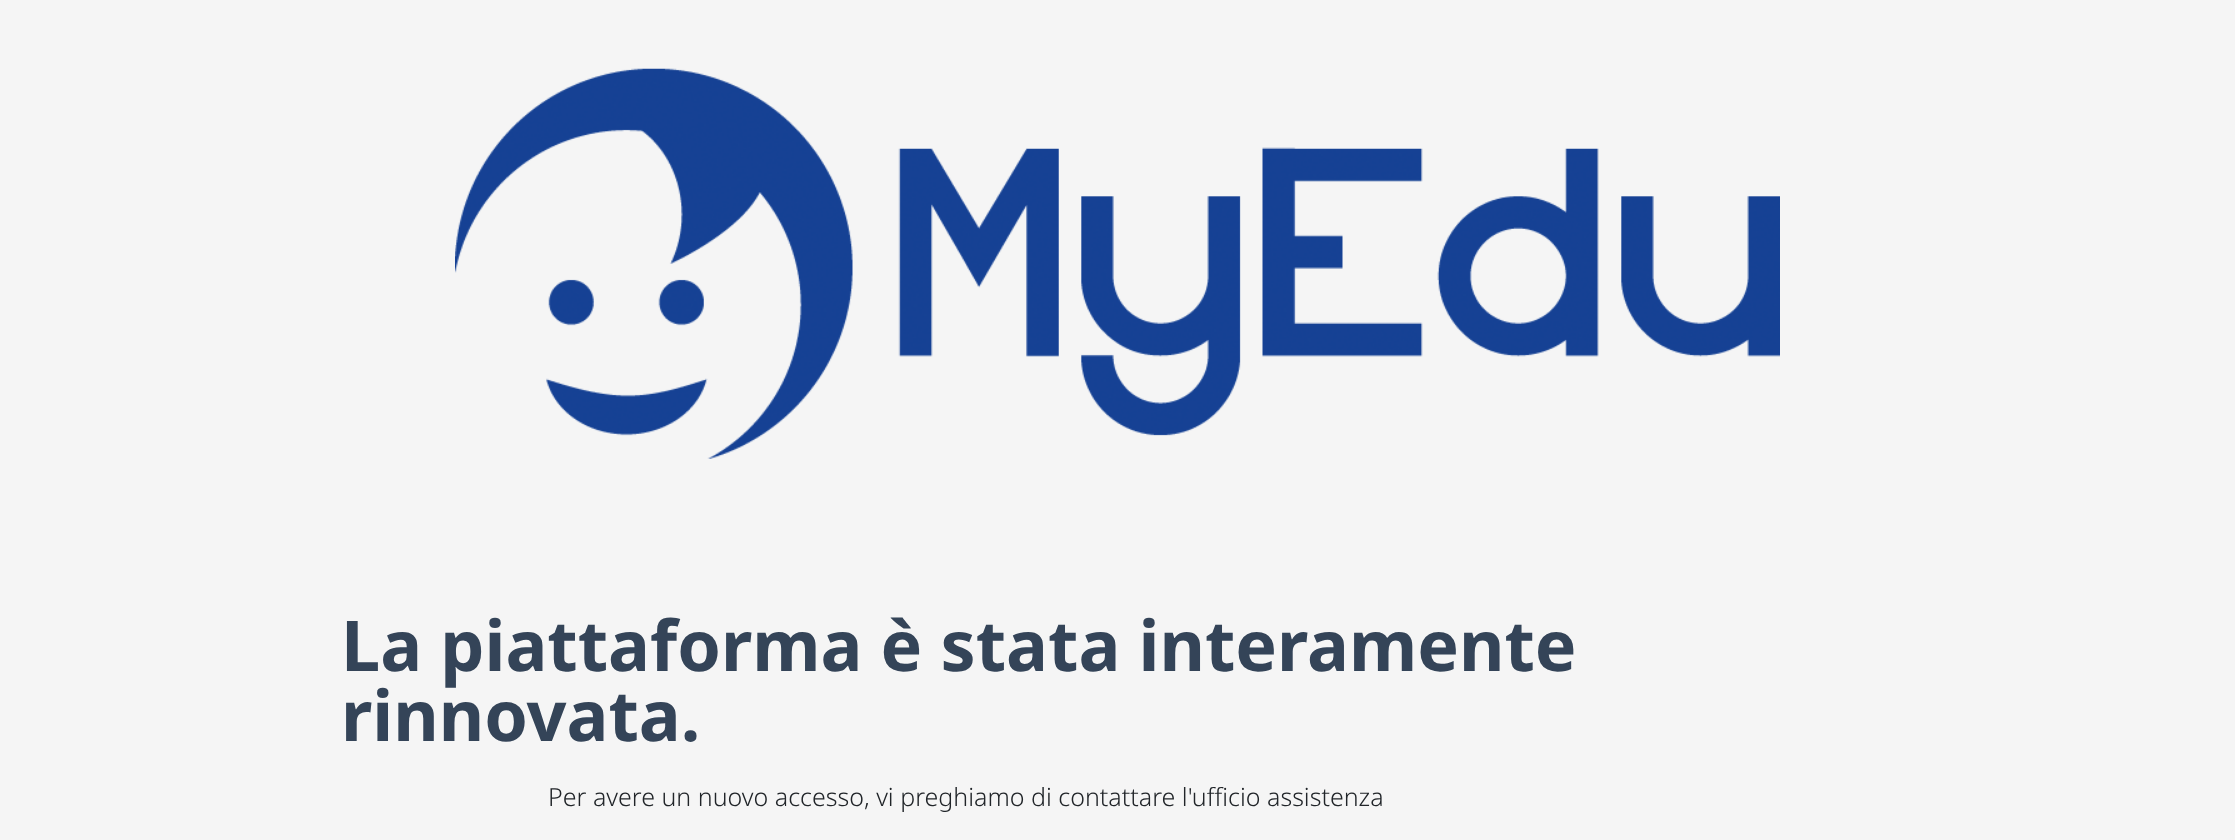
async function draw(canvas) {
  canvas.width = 2235
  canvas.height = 840
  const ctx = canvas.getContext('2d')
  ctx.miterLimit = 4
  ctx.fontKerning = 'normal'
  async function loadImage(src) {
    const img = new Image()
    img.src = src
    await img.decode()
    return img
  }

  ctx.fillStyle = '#f5f5f5'
  ctx.fillRect(0, 0, 2235, 840)
  ctx.drawImage(await loadImage('image0.png'), 455, 68, 1325, 391)
  ctx.font = 'bold 70px Noto Sans'
  ctx.fillStyle = '#344458'
  ctx.fillText('La piattaforma è stata interamente', 341, 671)
  ctx.fillText('rinnovata.', 341, 741)
  ctx.font = '300 25px Noto Sans'
  ctx.fillStyle = '#212529'
  ctx.fillText('Per avere un nuovo accesso, vi preghiamo di contattare l\'ufficio assistenza', 548, 806)
}

draw(document.querySelector('canvas'))
